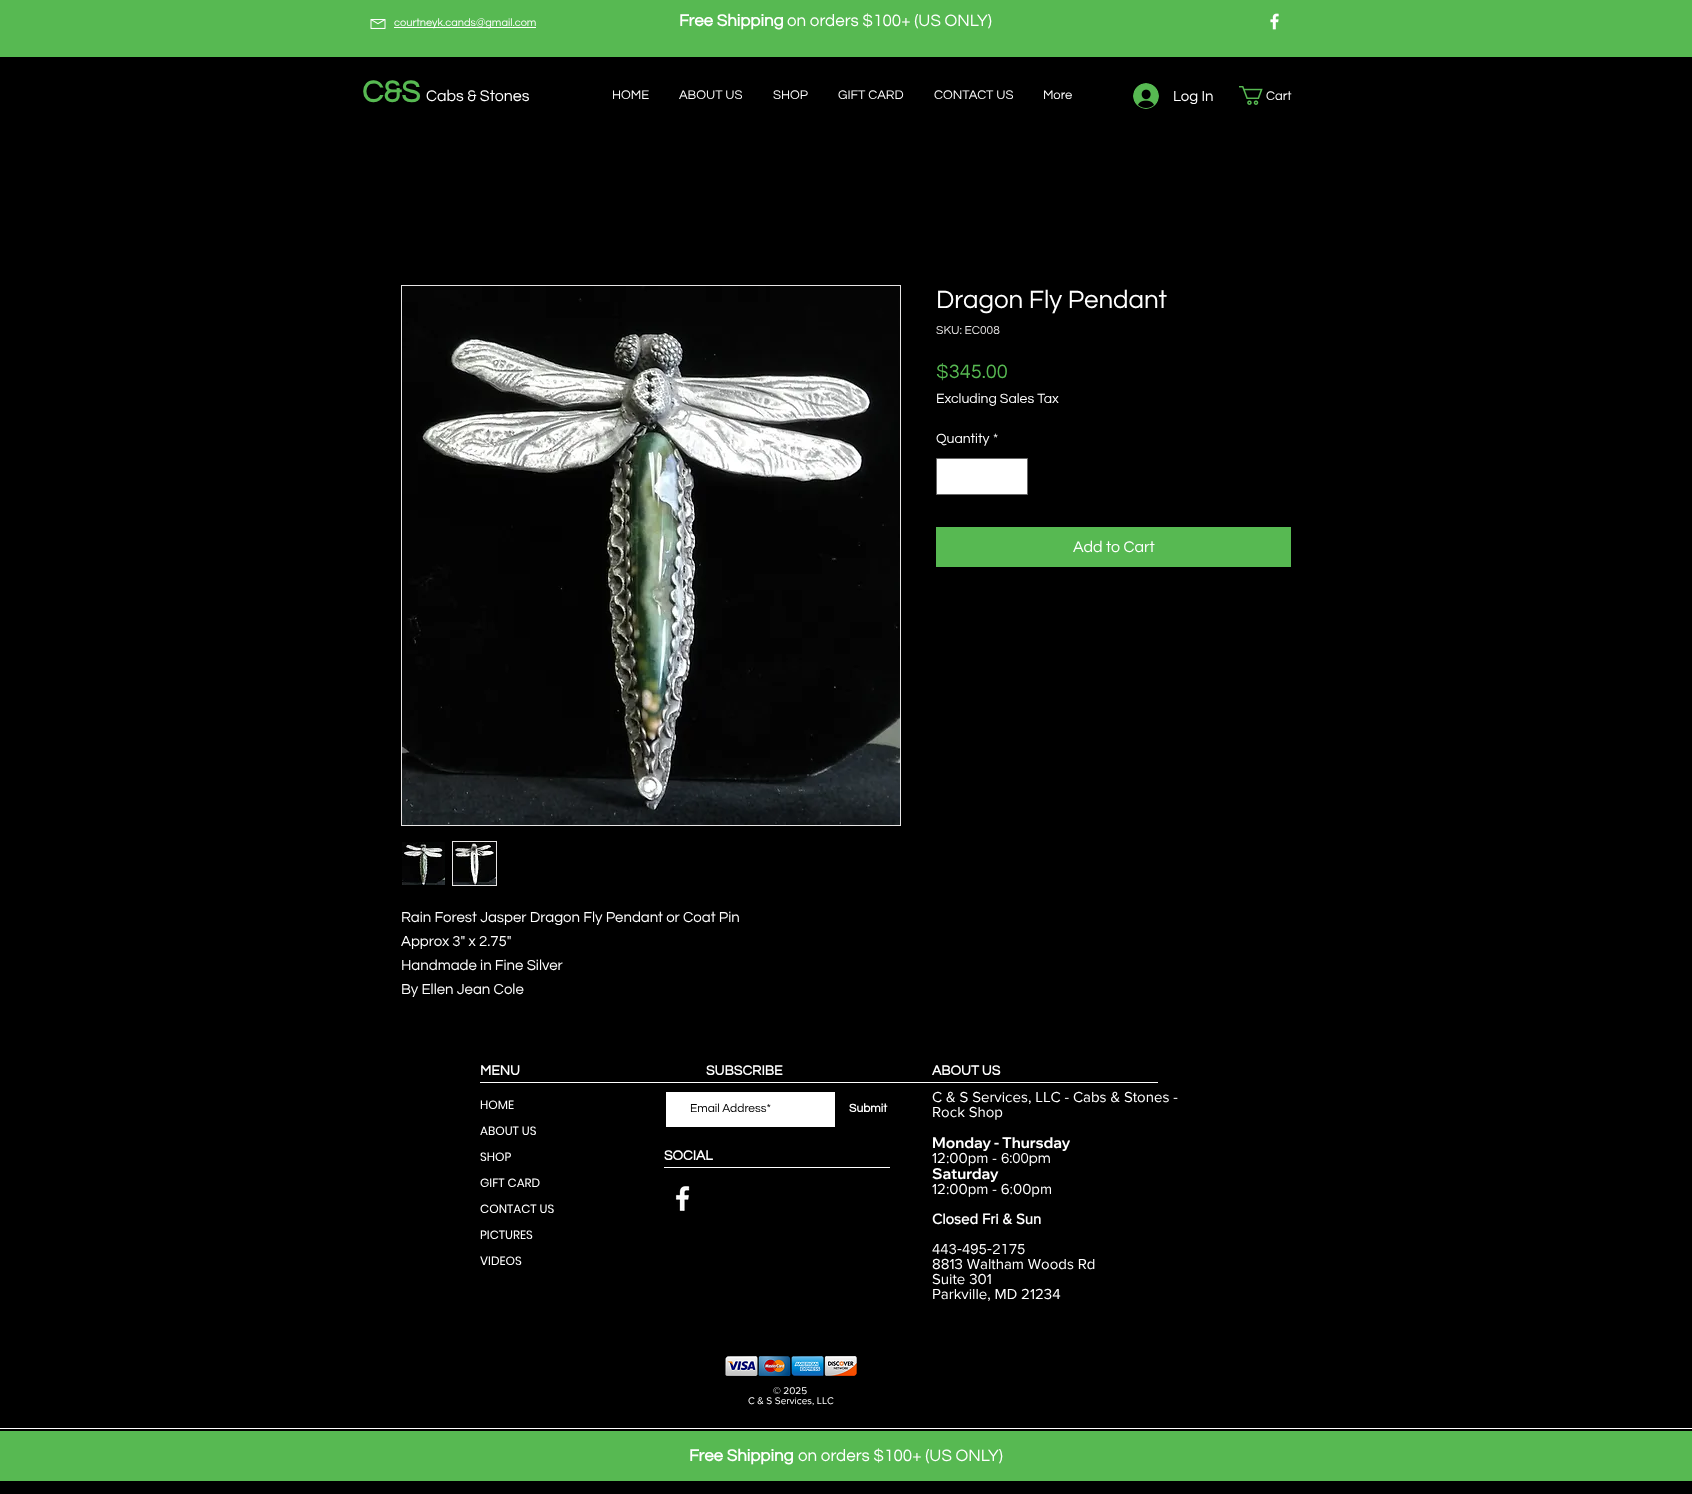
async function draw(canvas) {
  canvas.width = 1692
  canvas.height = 1494
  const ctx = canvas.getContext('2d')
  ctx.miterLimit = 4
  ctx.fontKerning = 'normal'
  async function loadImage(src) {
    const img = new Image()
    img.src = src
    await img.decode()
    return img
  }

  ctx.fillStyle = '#000'
  ctx.fillRect(0, 0, 1692, 1494)
  ctx.fillStyle = '#57b952'
  ctx.fillRect(0, 0, 1692, 57)
  ctx.drawImage(await loadImage('image0.png'), 370, 19, 16, 10)
  ctx.fillStyle = '#fff'
  ctx.fillRect(394, 27, 142, 1)
  ctx.font = '11px Questrial'
  ctx.fillText('courtneyk.cands@gmail.com', 394, 26)
  ctx.font = 'bold 17px Questrial'
  ctx.fillText('Free Shipping', 679, 26)
  ctx.font = '17px Questrial'
  ctx.fillText('on orders $100+ (US ONLY)', 787, 26)
  ctx.drawImage(await loadImage('image1.png'), 1270, 13, 9, 17)
  ctx.font = 'bold 31px Questrial'
  ctx.fillStyle = '#57b952'
  ctx.fillText('C&S', 362, 102)
  ctx.font = '16px Questrial'
  ctx.fillStyle = '#fff'
  ctx.fillText('Cabs & Stones', 426, 101)
  ctx.font = '13px Questrial'
  ctx.fillText('HOME', 612, 99)
  ctx.fillText('ABOUT US', 679, 99)
  ctx.fillText('SHOP', 773, 99)
  ctx.fillText('GIFT CARD', 838, 99)
  ctx.fillText('CONTACT US', 934, 99)
  ctx.fillText('More', 1043, 99)
  ctx.drawImage(await loadImage('image2.png'), 1133, 83, 26, 26)
  ctx.font = '15px Questrial'
  ctx.fillText('Log In', 1173, 101)
  ctx.drawImage(await loadImage('image3.png'), 1239, 86, 24, 19)
  ctx.font = '13px Questrial'
  ctx.fillText('Cart', 1266, 100)
  ctx.font = '26px Questrial'
  ctx.fillText('Dragon Fly Pendant', 936, 308)
  ctx.font = '12px Questrial'
  ctx.fillStyle = '#e8e6e6'
  ctx.fillText('SKU: EC008', 936, 334)
  ctx.font = '20px Questrial'
  ctx.fillStyle = '#57b952'
  ctx.fillText('$345.00', 936, 378)
  ctx.font = '14px Questrial'
  ctx.fillStyle = '#fff'
  ctx.fillText('Excluding Sales Tax', 936, 403)
  ctx.fillText('Quantity', 936, 443)
  ctx.fillText('*', 993, 443)
  ctx.beginPath()
  ctx.rect(936.5, 458.5, 91, 36)
  ctx.fill()
  ctx.strokeStyle = '#666'
  ctx.stroke()
  ctx.fillStyle = '#57b952'
  ctx.fillRect(936, 527, 355, 40)
  ctx.font = '16px Questrial'
  ctx.fillStyle = '#fff'
  ctx.fillText('Add to Cart', 1073, 552)
  ctx.strokeStyle = '#e8e6e6'
  ctx.strokeRect(401.5, 285.5, 499, 540)
  ctx.drawImage(await loadImage('image4.png'), 402, 286, 498, 539)
  ctx.drawImage(await loadImage('image5.png'), 402, 842, 43, 43)
  ctx.fillStyle = '#e8e6e6'
  ctx.fillRect(452, 841, 45, 45)
  ctx.drawImage(await loadImage('image6.png'), 453, 842, 43, 43)
  ctx.font = '15px Questrial'
  ctx.fillStyle = '#fff'
  ctx.fillText('Rain Forest Jasper Dragon Fly Pendant or Coat Pin', 401, 922)
  ctx.fillText('Approx 3" x 2.75"', 401, 946)
  ctx.fillText('Handmade in Fine Silver', 401, 970)
  ctx.fillText('By Ellen Jean Cole', 401, 994)
  ctx.font = 'bold 14px Questrial'
  ctx.fillText('MENU', 480, 1075)
  ctx.fillRect(480, 1082, 678, 1)
  ctx.fillText('SUBSCRIBE', 706, 1075)
  ctx.fillText('ABOUT US', 932, 1075)
  ctx.font = '12px Poppins'
  ctx.fillText('HOME', 480, 1109)
  ctx.fillText('ABOUT US', 480, 1135)
  ctx.fillText('SHOP', 480, 1161)
  ctx.fillText('GIFT CARD', 480, 1187)
  ctx.fillText('CONTACT US', 480, 1213)
  ctx.fillText('PICTURES', 480, 1239)
  ctx.fillText('VIDEOS', 480, 1265)
  ctx.fillRect(666, 1092, 169, 35)
  ctx.font = '12px Questrial'
  ctx.fillStyle = '#000'
  ctx.fillText('Email Address*', 690, 1112)
  ctx.font = 'bold 12px Questrial'
  ctx.fillStyle = '#fff'
  ctx.fillText('Submit', 849, 1112)
  ctx.font = '15px "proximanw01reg"'
  ctx.fillText('C & S Services, LLC - Cabs & Stones -', 932, 1102)
  ctx.fillText('Rock Shop', 932, 1117)
  ctx.font = 'bold 15px Wix Madefor Display'
  ctx.fillText('Monday - Thursday', 932, 1148)
  ctx.font = '15px "proximanw01reg"'
  ctx.fillText('12:00pm -', 932, 1163)
  ctx.font = '15px Questrial'
  ctx.fillText('6:00pm', 1001, 1163)
  ctx.font = 'bold 15px Wix Madefor Display'
  ctx.fillText('Saturday', 932, 1179)
  ctx.font = '15px "proximanw01reg"'
  ctx.fillText('12:00pm - 6:00pm', 932, 1194)
  ctx.font = 'bold 15px "proximanw01reg"'
  ctx.fillText('Closed Fri & Sun', 932, 1224)
  ctx.font = '15px Questrial'
  ctx.fillText('443-495-2175', 932, 1254)
  ctx.font = '15px "proximanw01reg"'
  ctx.fillText('8813 Waltham Woods Rd', 932, 1269)
  ctx.fillText('Suite 301', 932, 1284)
  ctx.fillText('Parkville, MD 21234', 932, 1299)
  ctx.font = 'bold 14px Questrial'
  ctx.fillText('SOCIAL', 664, 1160)
  ctx.fillRect(664, 1167, 226, 1)
  ctx.drawImage(await loadImage('image7.png'), 675, 1186, 15, 25)
  ctx.drawImage(await loadImage('image8.png'), 725, 1356, 132, 20)
  ctx.font = '10px "proximanw01reg"'
  ctx.fillText('© 2025', 773, 1394)
  ctx.fillText('C & S Services, LLC', 748, 1404)
  ctx.fillRect(0, 1428, 1692, 1)
  ctx.fillStyle = '#57b952'
  ctx.fillRect(0, 1431, 1692, 50)
  ctx.font = 'bold 17px Questrial'
  ctx.fillStyle = '#fff'
  ctx.fillText('Free Shipping', 689, 1461)
  ctx.font = '17px Questrial'
  ctx.fillText('on orders $100+ (US ONLY)', 798, 1461)
}

draw(document.querySelector('canvas'))
